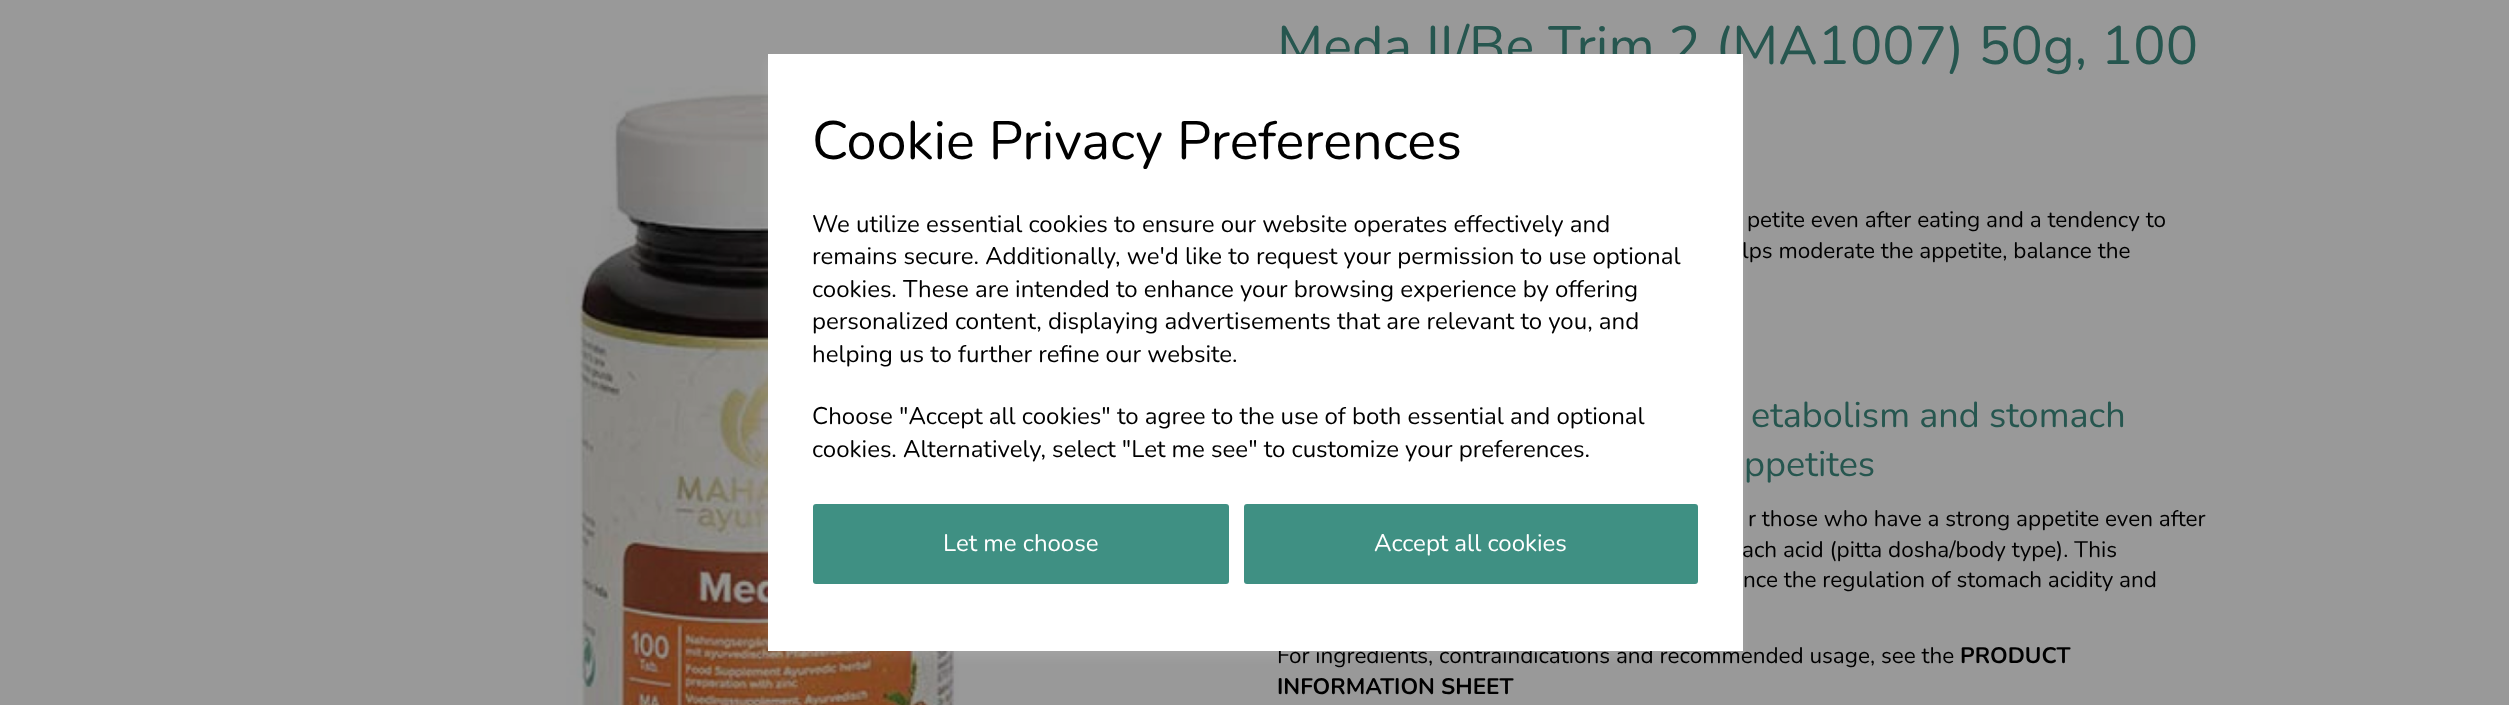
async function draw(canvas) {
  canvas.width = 2509
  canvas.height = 705
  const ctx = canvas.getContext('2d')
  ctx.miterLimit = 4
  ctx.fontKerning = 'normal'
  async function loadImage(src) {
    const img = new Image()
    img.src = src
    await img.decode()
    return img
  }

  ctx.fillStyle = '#999'
  ctx.fillRect(0, 0, 2509, 705)
  ctx.drawImage(await loadImage('image0.png'), 565, 85, 394, 620)
  ctx.fillStyle = '#ffffff1a'
  ctx.filter = 'blur(6px)'
  ctx.beginPath()
  ctx.rect(768, 60, 975, 597)
  ctx.fill()
  ctx.filter = 'none'
  ctx.font = '54px Nunito'
  ctx.fillStyle = '#26564f'
  ctx.fillText('Meda II/Be Trim 2 (MA1007) 50g, 100', 1277, 64)
  ctx.font = '22.5px Nunito'
  ctx.fillStyle = '#000'
  ctx.fillText('For ingredients, contraindications and recommended usage, see the', 1277, 663)
  ctx.fillStyle = '#fff'
  ctx.fillRect(768, 54, 975, 597)
  ctx.font = '54px Nunito'
  ctx.fillStyle = '#000'
  ctx.fillText('Cookie Privacy Preferences', 812, 159)
  ctx.font = '24px Nunito'
  ctx.fillText('We utilize essential cookies to ensure our website operates effectively and', 812, 232)
  ctx.fillText('remains secure. Additionally, we\'d like to request your permission to use optional', 812, 264)
  ctx.fillText('cookies. These are intended to enhance your browsing experience by offering', 812, 297)
  ctx.fillText('personalized content, displaying advertisements that are relevant to you, and', 812, 329)
  ctx.fillText('helping us to further refine our website.', 812, 362)
  ctx.fillText('Choose "Accept all cookies" to agree to the use of both essential and optional', 812, 424)
  ctx.fillText('cookies. Alternatively, select "Let me see" to customize your preferences.', 812, 457)
  ctx.fillStyle = '#3f9083'
  ctx.beginPath()
  ctx.roundRect(813, 504, 416, 80, 3)
  ctx.fill()
  ctx.fillStyle = '#fff'
  ctx.fillText('Let me choose', 943, 551)
  ctx.fillStyle = '#3f9083'
  ctx.beginPath()
  ctx.roundRect(1244, 504, 454, 80, 3)
  ctx.fill()
  ctx.fillStyle = '#fff'
  ctx.fillText('Accept all cookies', 1374, 551)
  ctx.font = '22.5px Nunito'
  ctx.fillStyle = '#000'
  ctx.fillText('petite even after eating and a tendency to', 1747, 227)
  ctx.fillText('lps moderate the appetite, balance the', 1742, 258)
  ctx.font = '36px Nunito'
  ctx.fillStyle = '#26564f'
  ctx.fillText('etabolism and stomach', 1751, 427)
  ctx.fillText('ppetites', 1744, 476)
  ctx.font = '22.5px Nunito'
  ctx.fillStyle = '#000'
  ctx.fillText('r those who have a strong appetite even after', 1748, 526)
  ctx.fillText('ach acid (pitta dosha/body type). This', 1742, 557)
  ctx.fillText('nce the regulation of stomach acidity and', 1743, 587)
  ctx.font = 'bold 22.5px Nunito'
  ctx.fillText('PRODUCT', 1960, 663)
  ctx.fillText('INFORMATION SHEET', 1277, 694)
}

draw(document.querySelector('canvas'))
